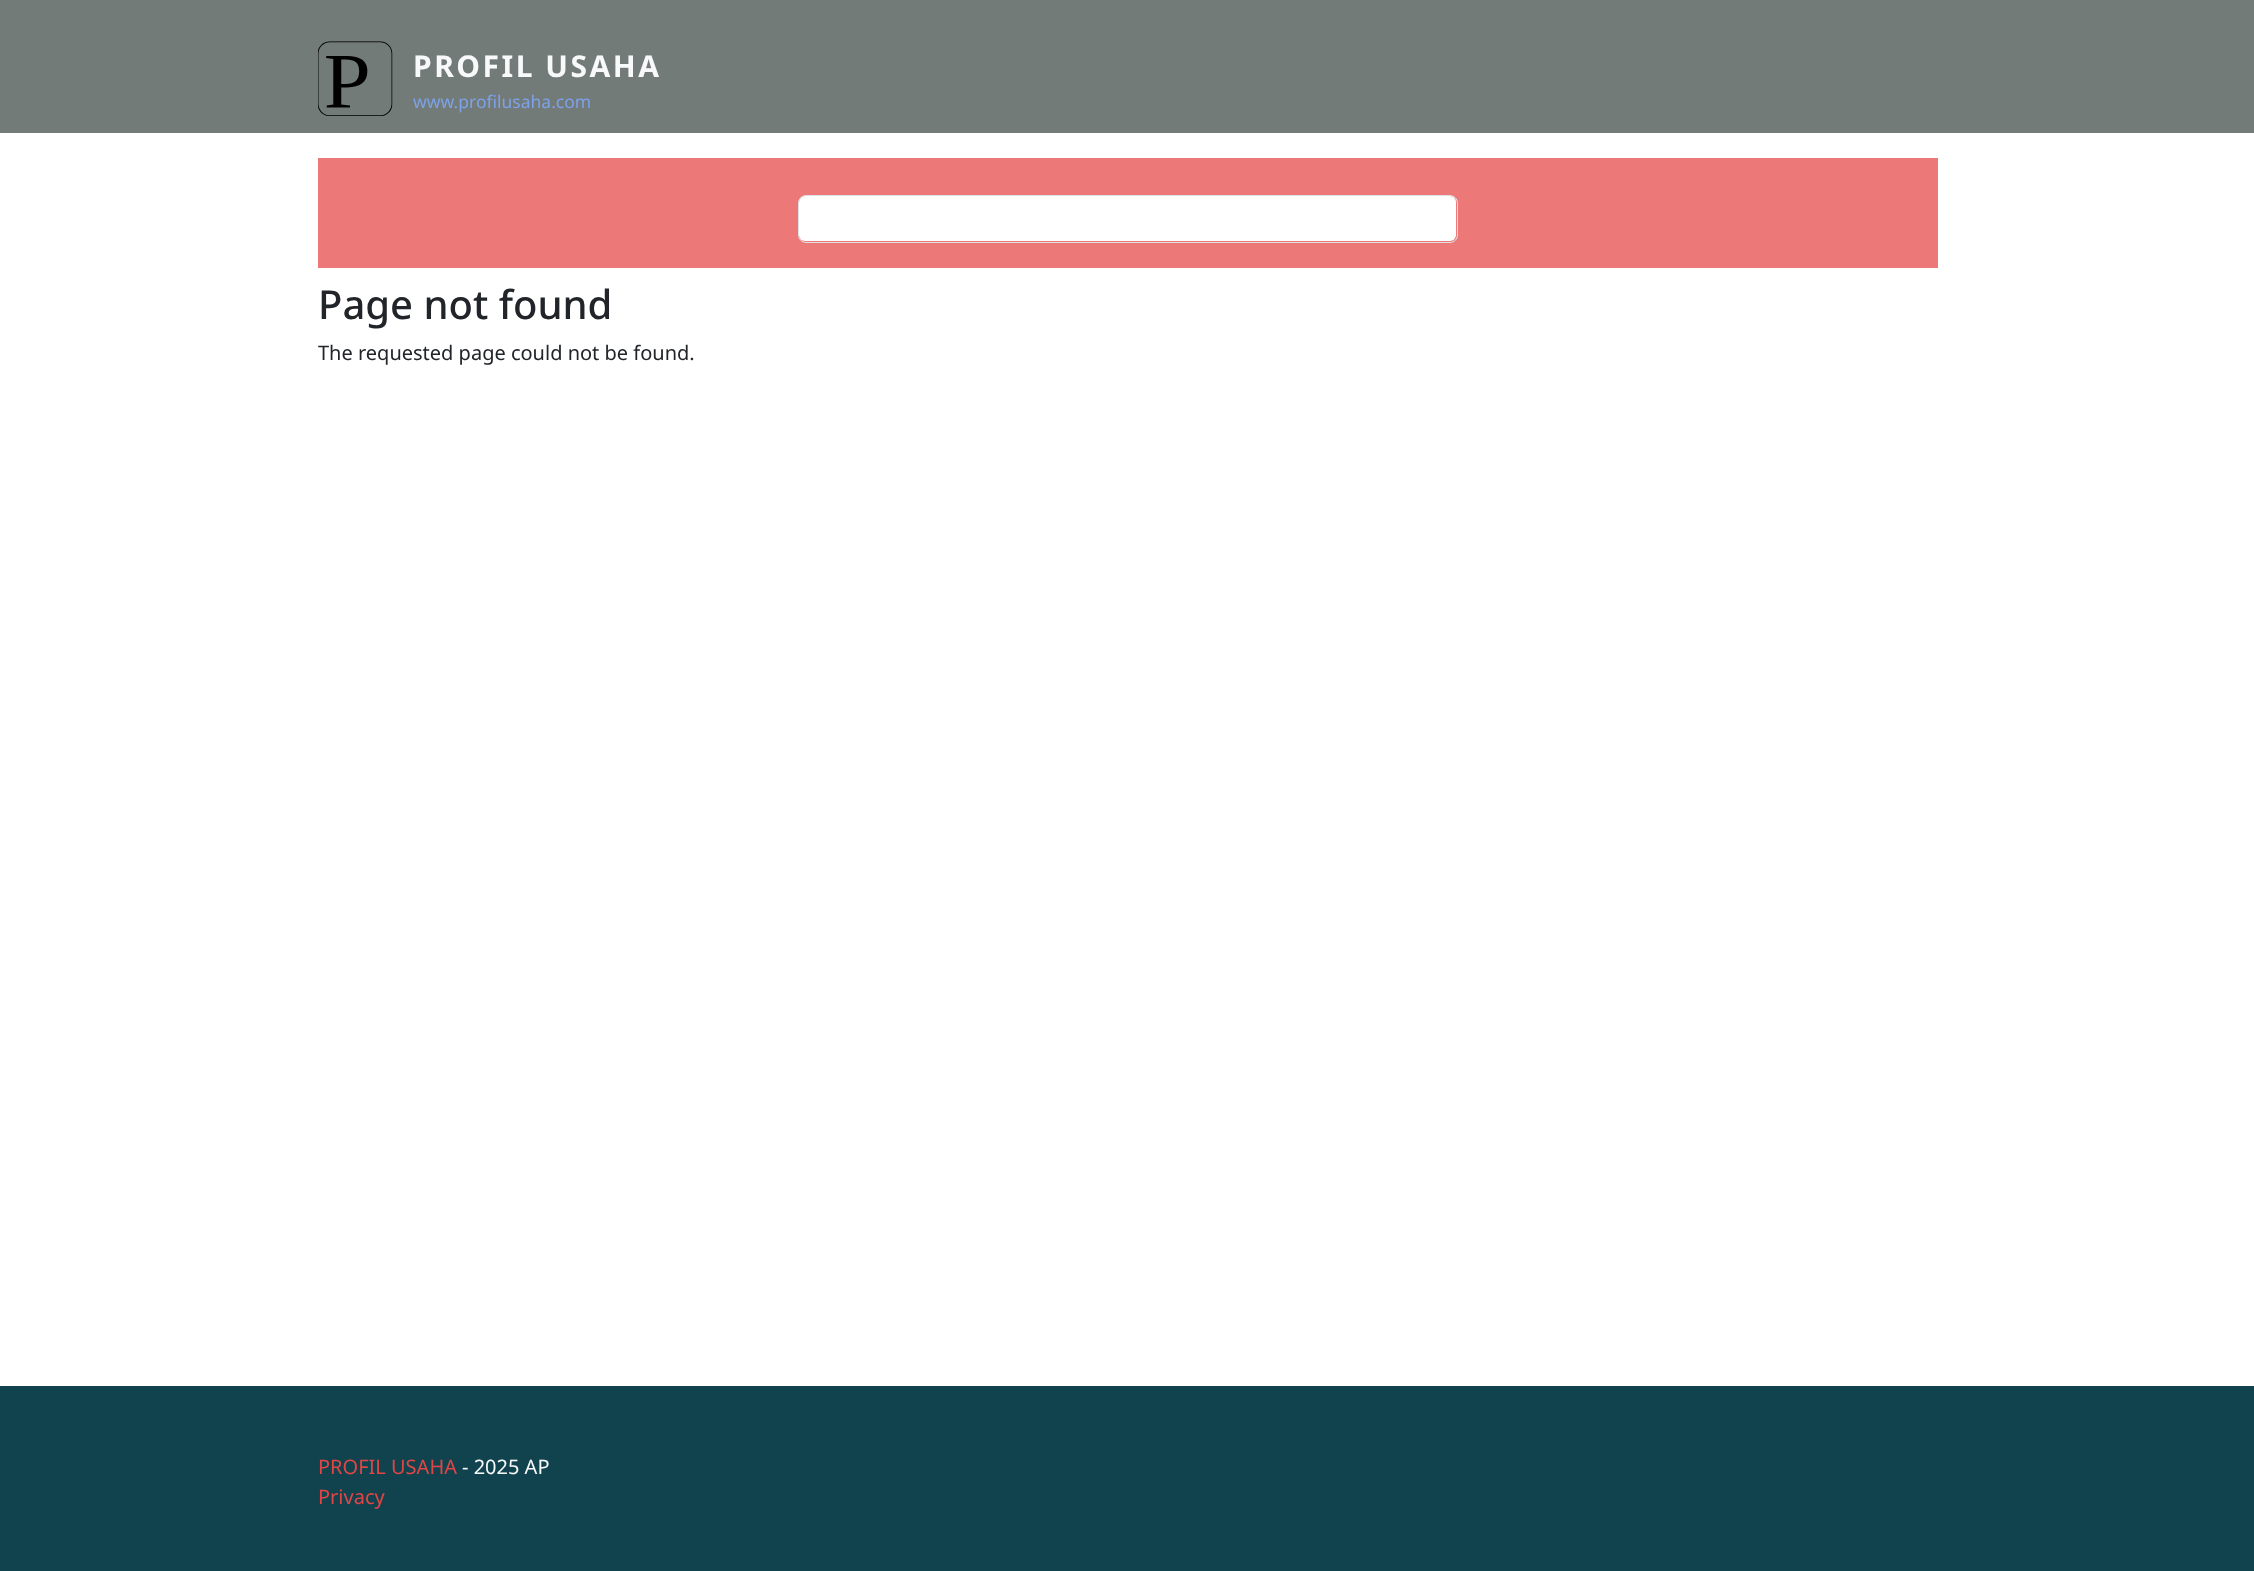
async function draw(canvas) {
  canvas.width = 2254
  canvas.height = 1571
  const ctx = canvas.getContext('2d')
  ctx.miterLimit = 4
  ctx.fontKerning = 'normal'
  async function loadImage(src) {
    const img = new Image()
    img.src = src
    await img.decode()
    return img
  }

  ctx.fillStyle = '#fff'
  ctx.fillRect(0, 0, 2254, 1571)
  ctx.fillStyle = '#737b79'
  ctx.fillRect(0, 0, 2254, 133)
  ctx.drawImage(await loadImage('image0.png'), 318, 41, 75, 75)
  ctx.letterSpacing = '2.5px'
  ctx.font = 'bold 30px Noto Sans'
  ctx.fillStyle = '#f8f9fa'
  ctx.fillText('PROFIL USAHA', 413, 77)
  ctx.letterSpacing = '0px'
  ctx.font = '17.5px Noto Sans'
  ctx.fillStyle = '#7da2e8'
  ctx.fillText('www.profilusaha.com', 413, 108)
  ctx.fillStyle = '#ec7878'
  ctx.fillRect(318, 158, 1620, 110)
  ctx.fillStyle = '#fff'
  ctx.beginPath()
  ctx.roundRect(799, 196, 657, 45, 6)
  ctx.fill()
  ctx.beginPath()
  ctx.roundRect(798.5, 195.5, 659, 47, 7.5)
  ctx.strokeStyle = '#dee2e6'
  ctx.stroke()
  ctx.font = '500 40px Noto Sans'
  ctx.fillStyle = '#212529'
  ctx.fillText('Page not found', 318, 319)
  ctx.font = '20px Noto Sans'
  ctx.fillText('The requested page could not be found.', 318, 360)
  ctx.fillStyle = '#11434f'
  ctx.fillRect(0, 1386, 2254, 185)
  ctx.fillStyle = '#e14545'
  ctx.fillText('PROFIL USAHA', 318, 1474)
  ctx.fillStyle = '#f8f9fa'
  ctx.fillText('- 2025 AP', 462, 1474)
  ctx.fillStyle = '#e14545'
  ctx.fillText('Privacy', 318, 1504)
}

draw(document.querySelector('canvas'))
